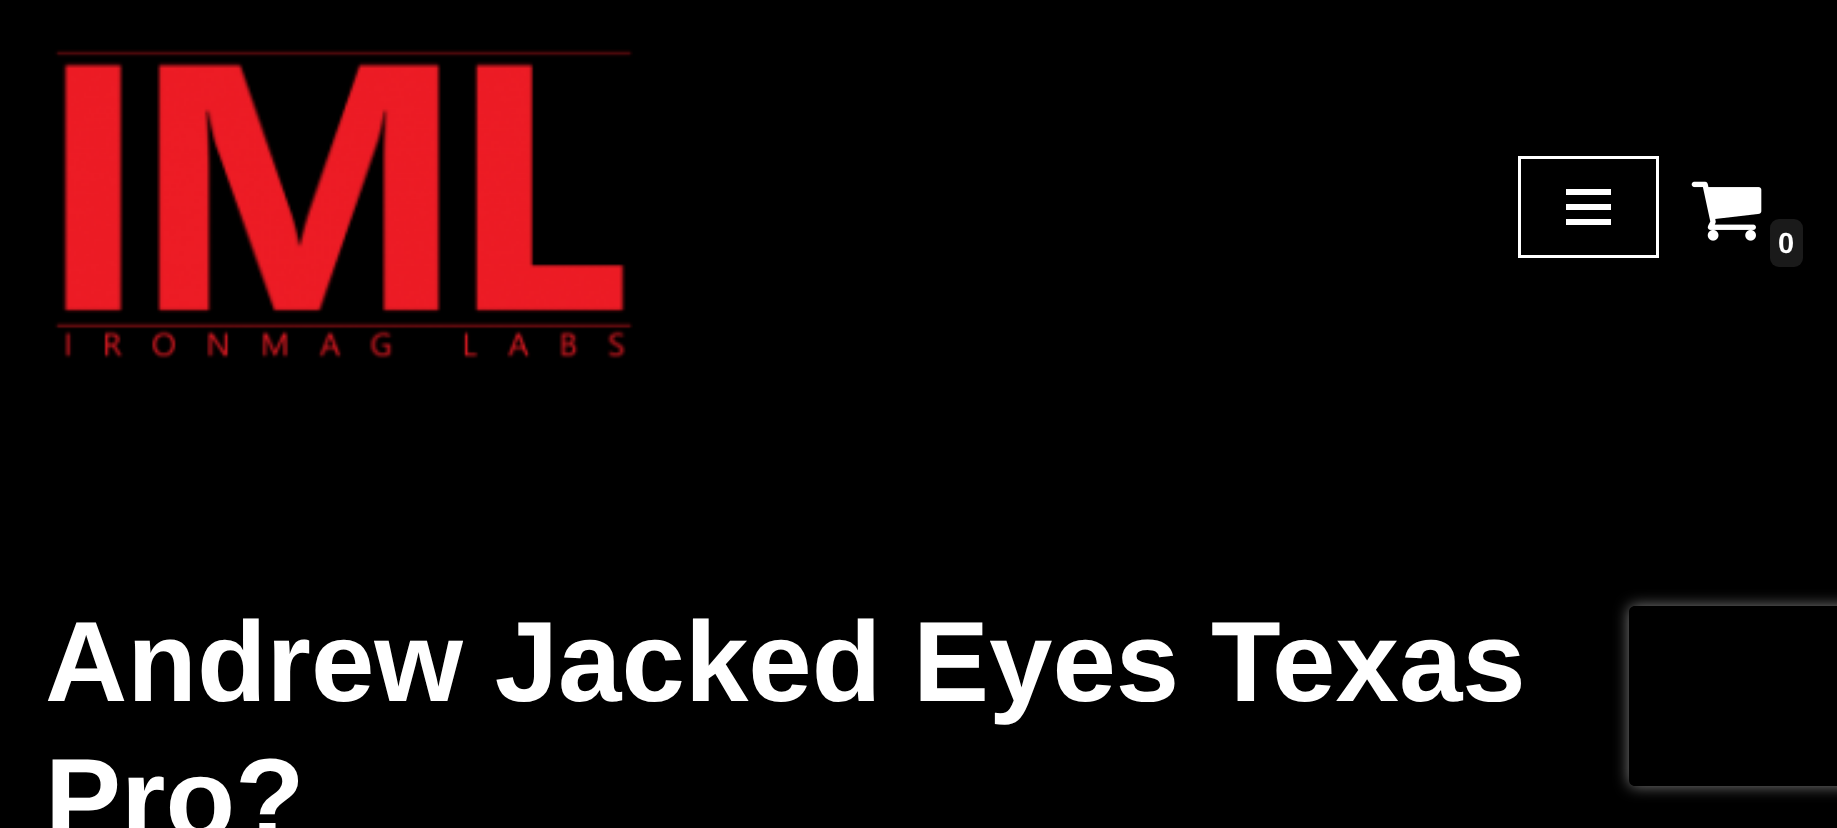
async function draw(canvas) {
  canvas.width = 1837
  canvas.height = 828
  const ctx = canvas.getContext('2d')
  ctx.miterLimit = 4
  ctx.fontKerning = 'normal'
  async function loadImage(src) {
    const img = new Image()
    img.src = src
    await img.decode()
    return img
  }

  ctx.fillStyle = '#000'
  ctx.fillRect(0, 0, 1837, 828)
  ctx.drawImage(await loadImage('image0.png'), 54, 49, 579, 310)
  ctx.strokeStyle = '#fff'
  ctx.lineWidth = 3
  ctx.strokeRect(1519.5, 157.5, 138, 99)
  ctx.fillStyle = '#fff'
  ctx.fillRect(1566, 189, 45, 6)
  ctx.fillRect(1566, 204, 45, 6)
  ctx.fillRect(1566, 219, 45, 6)
  ctx.drawImage(await loadImage('image1.png'), 1691, 181, 71, 60)
  ctx.fillStyle = '#1a1a1a'
  ctx.beginPath()
  ctx.roundRect(1770, 219, 33, 48, 9)
  ctx.fill()
  ctx.font = 'bold 29px Liberation Sans'
  ctx.fillStyle = '#fff'
  ctx.fillText('0', 1778, 253)
  ctx.font = 'bold 114px Liberation Sans'
  ctx.fillText('Andrew Jacked Eyes Texas', 45, 701)
  ctx.fillText('Pro?', 45, 838)
  ctx.save()
  ctx.beginPath()
  ctx.moveTo(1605, 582)
  ctx.lineTo(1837, 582)
  ctx.lineTo(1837, 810)
  ctx.lineTo(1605, 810)
  ctx.closePath()
  ctx.moveTo(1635, 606)
  ctx.lineTo(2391, 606)
  ctx.bezierCurveTo(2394.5, 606, 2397, 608.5, 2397, 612)
  ctx.lineTo(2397, 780)
  ctx.bezierCurveTo(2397, 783.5, 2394.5, 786, 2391, 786)
  ctx.lineTo(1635, 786)
  ctx.bezierCurveTo(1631.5, 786, 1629, 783.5, 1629, 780)
  ctx.lineTo(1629, 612)
  ctx.bezierCurveTo(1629, 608.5, 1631.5, 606, 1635, 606)
  ctx.closePath()
  ctx.clip('evenodd')
  ctx.fillStyle = '#808080'
  ctx.filter = 'blur(7.5px)'
  ctx.beginPath()
  ctx.roundRect(1629, 606, 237, 180, 6)
  ctx.fill()
  ctx.filter = 'none'
  ctx.restore()
}

draw(document.querySelector('canvas'))
